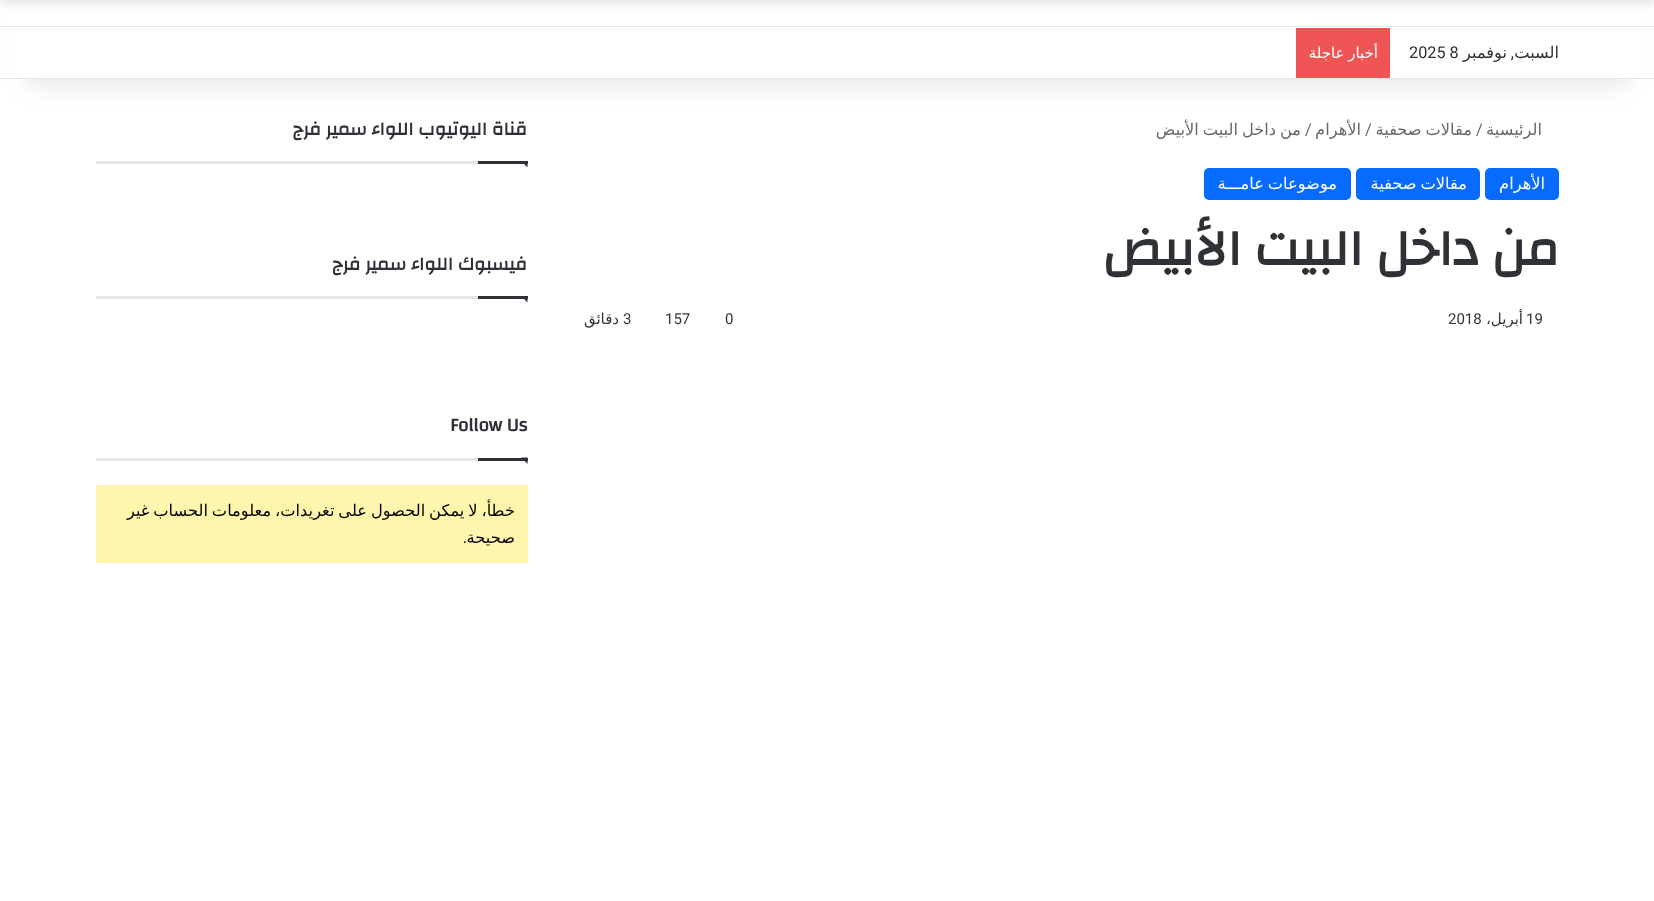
async function draw(canvas) {
  canvas.width = 1654
  canvas.height = 901
  const ctx = canvas.getContext('2d')
  ctx.miterLimit = 4
  ctx.fontKerning = 'normal'

  ctx.fillStyle = '#fff'
  ctx.fillRect(0, 0, 1654, 901)
  ctx.fillStyle = '#0000001a'
  ctx.filter = 'blur(12.5px)'
  ctx.beginPath()
  ctx.rect(25, 16, 1605, 69)
  ctx.fill()
  ctx.filter = 'none'
  ctx.fillStyle = '#fff'
  ctx.fillRect(9, 0, 1637, 78)
  ctx.fillStyle = '#63636333'
  ctx.filter = 'blur(5px)'
  ctx.beginPath()
  ctx.rect(0, -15, 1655, 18)
  ctx.fill()
  ctx.filter = 'none'
  ctx.fillStyle = '#e6e6e6'
  ctx.fillRect(0, 26, 1654, 1)
  ctx.fillRect(0, 78, 1654, 1)
  ctx.direction = 'rtl'
  ctx.font = '16.25px DejaVu Sans'
  ctx.fillStyle = '#2e3136'
  ctx.fillText('السبت', 1559, 58)
  ctx.font = '16.25px Roboto'
  ctx.fillText(',', 1514, 58)
  ctx.font = '16.25px DejaVu Sans'
  ctx.fillText('نوفمبر', 1507, 58)
  ctx.direction = 'ltr'
  ctx.font = '16.25px Roboto'
  ctx.fillText('2025 8', 1409, 58)
  ctx.fillStyle = '#f05555'
  ctx.fillRect(1296, 28, 94, 50)
  ctx.wordSpacing = '-1px'
  ctx.direction = 'rtl'
  ctx.font = '15px DejaVu Sans'
  ctx.fillStyle = '#fff'
  ctx.fillText('أخبار عاجلة', 1378, 58)
  ctx.wordSpacing = '0px'
  ctx.font = '16.25px DejaVu Sans'
  ctx.fillStyle = '#686868'
  ctx.fillText('الرئيسية', 1542, 135)
  ctx.direction = 'ltr'
  ctx.font = '16.25px Roboto'
  ctx.fillText('/', 1476, 135)
  ctx.wordSpacing = '-1.25px'
  ctx.direction = 'rtl'
  ctx.font = '16.25px DejaVu Sans'
  ctx.fillText('مقالات صحفية', 1472, 135)
  ctx.wordSpacing = '0px'
  ctx.direction = 'ltr'
  ctx.font = '16.25px Roboto'
  ctx.fillText('/', 1365, 135)
  ctx.direction = 'rtl'
  ctx.font = '16.25px DejaVu Sans'
  ctx.fillText('الأهرام', 1361, 135)
  ctx.direction = 'ltr'
  ctx.font = '16.25px Roboto'
  ctx.fillText('/', 1305, 135)
  ctx.wordSpacing = '-1.25px'
  ctx.direction = 'rtl'
  ctx.font = '16.25px DejaVu Sans'
  ctx.fillText('من داخل البيت الأبيض', 1301, 135)
  ctx.fillStyle = '#086bff'
  ctx.beginPath()
  ctx.roundRect(1485, 168, 74, 32, 5)
  ctx.fill()
  ctx.wordSpacing = '0px'
  ctx.fillStyle = '#fff'
  ctx.fillText('الأهرام', 1545, 189)
  ctx.fillStyle = '#086bff'
  ctx.beginPath()
  ctx.roundRect(1356, 168, 124, 32, 5)
  ctx.fill()
  ctx.wordSpacing = '-1.25px'
  ctx.fillStyle = '#fff'
  ctx.fillText('مقالات صحفية', 1467, 189)
  ctx.fillStyle = '#086bff'
  ctx.beginPath()
  ctx.roundRect(1204, 168, 147, 32, 5)
  ctx.fill()
  ctx.fillStyle = '#fff'
  ctx.fillText('موضوعات عامـــة', 1337, 189)
  ctx.wordSpacing = '0px'
  ctx.font = 'bold 51.25px Changa'
  ctx.fillStyle = '#2e3136'
  ctx.fillText('من داخل البيت الأبيض', 1559, 265)
  ctx.direction = 'ltr'
  ctx.font = '15px Roboto'
  ctx.fillStyle = '#353535'
  ctx.fillText('19', 1526, 324)
  ctx.direction = 'rtl'
  ctx.font = '15px DejaVu Sans'
  ctx.fillText('أبريل،', 1523, 324)
  ctx.direction = 'ltr'
  ctx.font = '15px Roboto'
  ctx.fillText('2018', 1448, 324)
  ctx.fillText('0', 725, 324)
  ctx.fillText('157', 665, 324)
  ctx.fillText('3', 623, 324)
  ctx.direction = 'rtl'
  ctx.font = '15px DejaVu Sans'
  ctx.fillText('دقائق', 619, 324)
  ctx.fillStyle = '#e6e6e6'
  ctx.fillRect(96, 161, 382, 3)
  ctx.font = 'bold 18.75px Changa'
  ctx.fillStyle = '#2e3136'
  ctx.fillText('قناة اليوتيوب اللواء سمير فرج', 527, 135)
  ctx.beginPath()
  ctx.moveTo(521, 161)
  ctx.lineTo(527.5, 161)
  ctx.lineTo(527.5, 167.5)
  ctx.closePath()
  ctx.fill()
  ctx.fillRect(478, 161, 50, 3)
  ctx.fillStyle = '#e6e6e6'
  ctx.fillRect(96, 296, 382, 3)
  ctx.fillStyle = '#2e3136'
  ctx.fillText('فيسبوك اللواء سمير فرج', 527, 270)
  ctx.beginPath()
  ctx.moveTo(521, 296)
  ctx.lineTo(527.5, 296)
  ctx.lineTo(527.5, 302.5)
  ctx.closePath()
  ctx.fill()
  ctx.fillRect(478, 296, 50, 3)
  ctx.fillStyle = '#e6e6e6'
  ctx.fillRect(96, 458, 382, 3)
  ctx.direction = 'ltr'
  ctx.fillStyle = '#2e3136'
  ctx.fillText('Follow Us', 450, 431)
  ctx.beginPath()
  ctx.moveTo(521, 457.5)
  ctx.lineTo(527.5, 457.5)
  ctx.lineTo(527.5, 464)
  ctx.closePath()
  ctx.fill()
  ctx.fillRect(478, 458, 50, 3)
  ctx.fillStyle = '#fff6ad'
  ctx.fillRect(96, 485, 432, 78)
  ctx.wordSpacing = '-1.25px'
  ctx.direction = 'rtl'
  ctx.font = '16.25px DejaVu Sans'
  ctx.fillStyle = '#030303'
  ctx.fillText('خطأ، لا يمكن الحصول على تغريدات، معلومات الحساب غير', 515, 516)
  ctx.wordSpacing = '0px'
  ctx.fillText('صحيحة', 515, 543)
  ctx.font = '16.25px Roboto'
  ctx.fillText('.', 467, 543)
}

draw(document.querySelector('canvas'))
